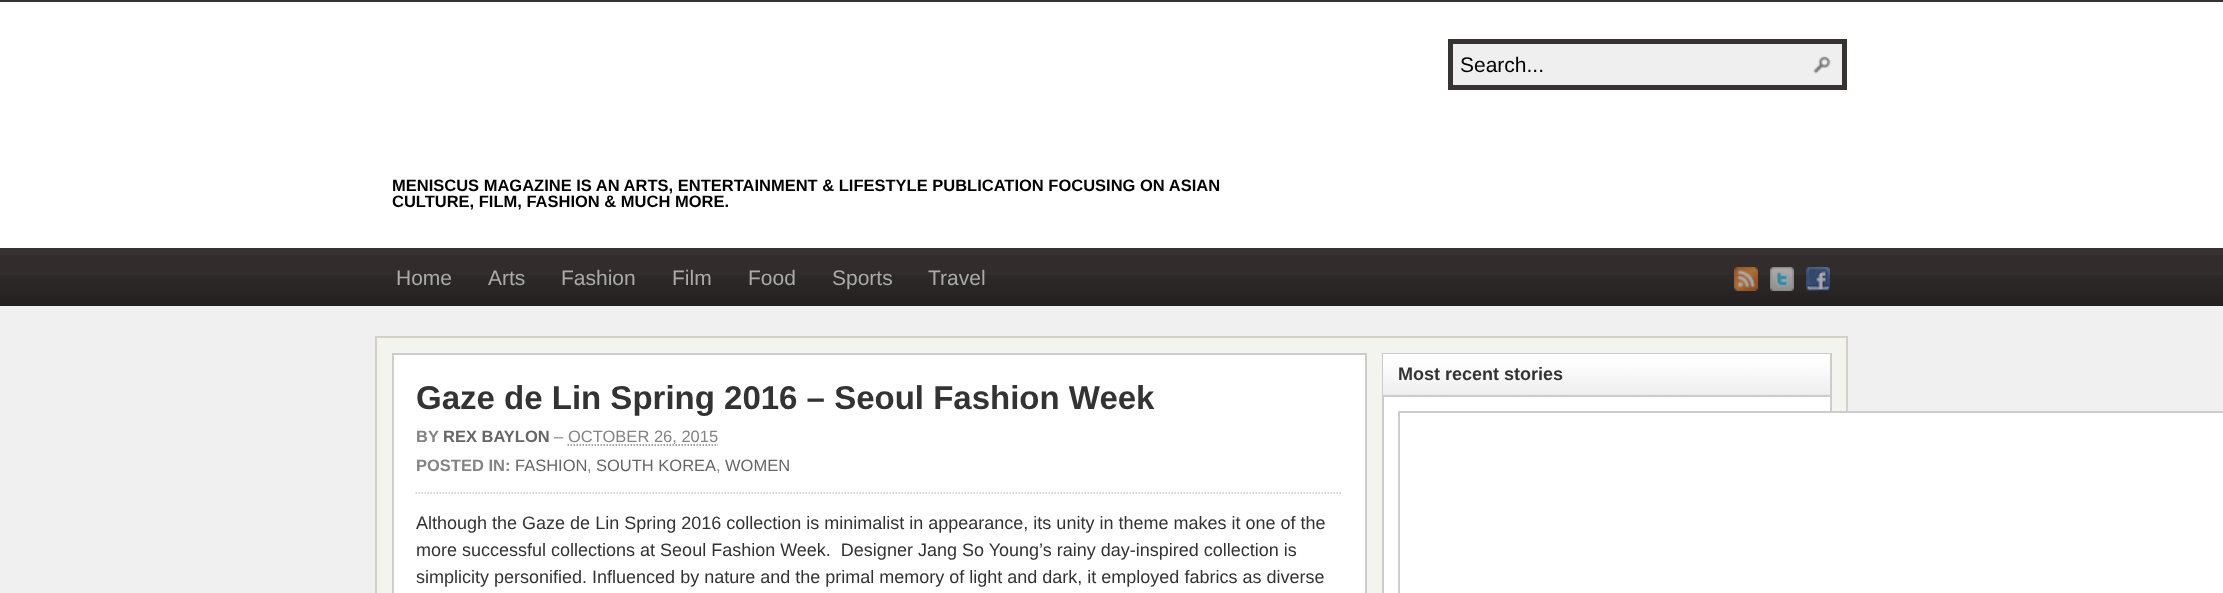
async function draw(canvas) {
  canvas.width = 2223
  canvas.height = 593
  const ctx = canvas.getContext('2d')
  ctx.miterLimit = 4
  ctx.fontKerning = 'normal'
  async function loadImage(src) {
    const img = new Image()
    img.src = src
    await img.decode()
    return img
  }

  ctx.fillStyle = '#f0f0f0'
  ctx.fillRect(0, 0, 2223, 593)
  ctx.fillStyle = '#333'
  ctx.fillRect(0, 0, 2223, 2)
  ctx.fillStyle = '#fff'
  ctx.fillRect(0, 2, 2223, 246)
  ctx.fillStyle = '#383332'
  ctx.fillRect(0, 248, 2223, 7)
  ctx.fillStyle = '#efefef'
  ctx.beginPath()
  ctx.rect(1450.5, 41.5, 394, 46)
  ctx.fill()
  ctx.strokeStyle = '#383332'
  ctx.lineWidth = 5
  ctx.stroke()
  ctx.font = '21px Liberation Sans'
  ctx.fillStyle = '#000'
  ctx.fillText('Search...', 1460, 72)
  ctx.drawImage(await loadImage('image0.png'), 1813, 56, 18, 18)
  ctx.font = 'bold 16.5px Liberation Sans'
  ctx.fillText('MENISCUS MAGAZINE IS AN ARTS, ENTERTAINMENT & LIFESTYLE PUBLICATION FOCUSING ON ASIAN', 392, 191)
  ctx.fillText('CULTURE, FILM, FASHION & MUCH MORE.', 392, 207)
  ctx.fillStyle = '#322c2c'
  ctx.fillRect(0, 255, 2223, 20)
  ctx.drawImage(await loadImage('image1.png'), 0, 275, 2223, 31)
  ctx.font = '21px Liberation Sans'
  ctx.fillStyle = '#aaa'
  ctx.fillText('Home', 396, 285)
  ctx.fillText('Arts', 488, 285)
  ctx.fillText('Fashion', 561, 285)
  ctx.fillText('Film', 672, 285)
  ctx.fillText('Food', 748, 285)
  ctx.fillText('Sports', 832, 285)
  ctx.fillText('Travel', 928, 285)
  ctx.drawImage(await loadImage('image2.png'), 1734, 267, 24, 24)
  ctx.drawImage(await loadImage('image3.png'), 1770, 267, 24, 24)
  ctx.drawImage(await loadImage('image4.png'), 1806, 267, 24, 24)
  ctx.fillStyle = '#f4f4ef'
  ctx.beginPath()
  ctx.rect(376, 337, 1471, 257)
  ctx.fill()
  ctx.strokeStyle = '#d3d1c7'
  ctx.lineWidth = 2
  ctx.stroke()
  ctx.fillStyle = '#fff'
  ctx.fillRect(1384, 397, 446, 196)
  ctx.strokeStyle = '#ccc'
  ctx.strokeRect(1383, 354, 448, 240)
  ctx.drawImage(await loadImage('image5.png'), 1383, 354, 447, 41)
  ctx.fillStyle = '#ccc'
  ctx.fillRect(1383, 395, 447, 2)
  ctx.font = 'bold 18px Liberation Sans'
  ctx.fillStyle = '#333'
  ctx.fillText('Most recent stories', 1398, 380)
  ctx.fillStyle = '#fff'
  ctx.fillRect(1830, 413, 393, 180)
  ctx.strokeRect(1399, 412, 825, 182)
  ctx.beginPath()
  ctx.rect(393, 354, 973, 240)
  ctx.fill()
  ctx.stroke()
  ctx.font = 'bold 33px Liberation Sans'
  ctx.fillStyle = '#333'
  ctx.fillText('Gaze de Lin Spring 2016 – Seoul Fashion Week', 416, 409)
  ctx.beginPath()
  ctx.moveTo(415.5, 493)
  ctx.lineTo(1342.5, 493)
  ctx.lineWidth = 1.5
  ctx.setLineDash([1.5, 1.5])
  ctx.stroke()
  ctx.font = 'bold 16.5px Liberation Sans'
  ctx.fillStyle = '#848485'
  ctx.fillText('BY', 416, 442)
  ctx.fillStyle = '#666'
  ctx.fillText('REX BAYLON', 443, 442)
  ctx.font = '16.5px Liberation Sans'
  ctx.fillStyle = '#848485'
  ctx.fillText('–', 554, 442)
  ctx.beginPath()
  ctx.moveTo(567.5, 445)
  ctx.lineTo(718, 445)
  ctx.strokeStyle = '#848485'
  ctx.stroke()
  ctx.fillText('OCTOBER 26, 2015', 568, 442)
  ctx.font = 'bold 16.5px Liberation Sans'
  ctx.fillText('POSTED IN:', 416, 471)
  ctx.font = '16.5px Liberation Sans'
  ctx.fillStyle = '#666'
  ctx.fillText('FASHION', 515, 471)
  ctx.fillStyle = '#848485'
  ctx.fillText(',', 587, 471)
  ctx.fillStyle = '#666'
  ctx.fillText('SOUTH KOREA', 596, 471)
  ctx.fillStyle = '#848485'
  ctx.fillText(',', 716, 471)
  ctx.fillStyle = '#666'
  ctx.fillText('WOMEN', 725, 471)
  ctx.font = '18px Liberation Sans'
  ctx.fillStyle = '#333'
  ctx.fillText('Although the Gaze de Lin Spring 2016 collection is minimalist in appearance, its unity in theme makes it one of the', 416, 529)
  ctx.fillText('more successful collections at Seoul Fashion Week.  Designer Jang So Young’s rainy day-inspired collection is', 416, 556)
  ctx.fillText('simplicity personified. Influenced by nature and the primal memory of light and dark, it employed fabrics as diverse', 416, 583)
}

draw(document.querySelector('canvas'))
